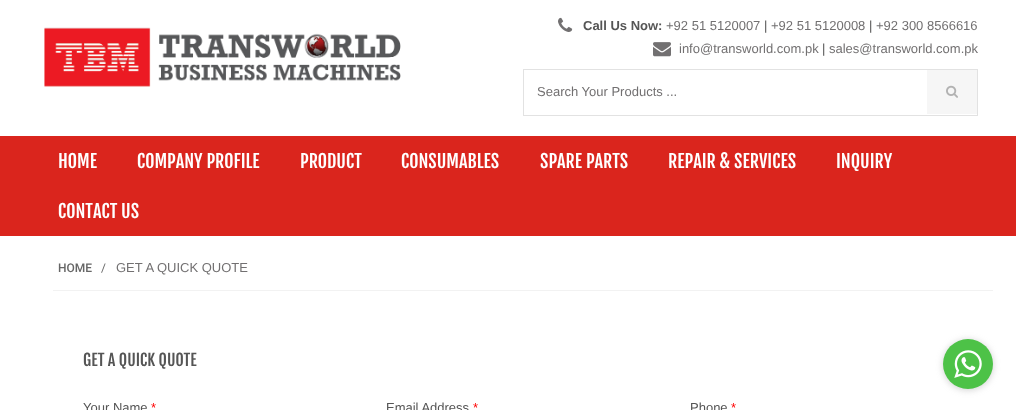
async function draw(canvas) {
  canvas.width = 1016
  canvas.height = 410
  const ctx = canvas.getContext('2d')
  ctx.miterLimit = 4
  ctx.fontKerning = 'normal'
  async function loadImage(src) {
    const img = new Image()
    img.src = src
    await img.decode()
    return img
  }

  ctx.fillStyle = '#fff'
  ctx.fillRect(0, 0, 1016, 410)
  ctx.drawImage(await loadImage('image0.png'), 44, 27, 357, 60)
  ctx.drawImage(await loadImage('image1.png'), 558, 17, 15, 15)
  ctx.font = 'bold 13px Liberation Sans'
  ctx.fillStyle = '#555'
  ctx.fillText('Call Us Now:', 583, 30)
  ctx.font = '13px Liberation Sans'
  ctx.fillStyle = '#727071'
  ctx.fillText('+92 51 5120007', 666, 30)
  ctx.fillStyle = '#555'
  ctx.fillText('|', 764, 30)
  ctx.fillStyle = '#727071'
  ctx.fillText('+92 51 5120008', 771, 30)
  ctx.fillStyle = '#555'
  ctx.fillText('|', 869, 30)
  ctx.fillStyle = '#727071'
  ctx.fillText('+92 300 8566616', 876, 30)
  ctx.drawImage(await loadImage('image2.png'), 653, 42, 18, 15)
  ctx.fillText('info@transworld.com.pk', 679, 53)
  ctx.fillStyle = '#555'
  ctx.fillText('|', 822, 53)
  ctx.fillStyle = '#727071'
  ctx.fillText('sales@transworld.com.pk', 829, 53)
  ctx.strokeStyle = '#e2e2e2'
  ctx.strokeRect(523.5, 69.5, 454, 46)
  ctx.fillText('Search Your Products ...', 537, 96)
  ctx.fillStyle = '#f6f6f6'
  ctx.fillRect(927, 70, 50, 44)
  ctx.drawImage(await loadImage('image3.png'), 946, 85, 12, 13)
  ctx.fillStyle = '#da251d'
  ctx.fillRect(0, 136, 1016, 100)
  ctx.font = '18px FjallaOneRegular'
  ctx.fillStyle = '#fff'
  ctx.fillText('HOME', 58, 168)
  ctx.fillText('COMPANY PROFILE', 137, 168)
  ctx.fillText('PRODUCT', 300, 168)
  ctx.fillText('CONSUMABLES', 401, 168)
  ctx.fillText('SPARE PARTS', 540, 168)
  ctx.fillText('REPAIR & SERVICES', 668, 168)
  ctx.fillText('INQUIRY', 836, 168)
  ctx.fillText('CONTACT US', 58, 218)
  ctx.fillStyle = '#f2f2f2'
  ctx.fillRect(53, 290, 940, 1)
  ctx.font = '500 12px Roboto'
  ctx.fillStyle = '#666'
  ctx.fillText('HOME', 58, 272)
  ctx.font = '12px Roboto'
  ctx.fillText('/', 101, 272)
  ctx.font = '13px Liberation Sans'
  ctx.fillStyle = '#727071'
  ctx.fillText('GET A QUICK QUOTE', 116, 272)
  ctx.font = '16px FjallaOneRegular'
  ctx.fillStyle = '#555'
  ctx.fillText('GET A QUICK QUOTE', 83, 366)
  ctx.font = '13px Liberation Sans'
  ctx.fillText('Your Name', 83, 412)
  ctx.fillStyle = '#f00'
  ctx.fillText('*', 151, 412)
  ctx.fillStyle = '#555'
  ctx.fillText('Email Address', 386, 412)
  ctx.fillStyle = '#f00'
  ctx.fillText('*', 473, 412)
  ctx.fillStyle = '#555'
  ctx.fillText('Phone', 690, 412)
  ctx.fillStyle = '#f00'
  ctx.fillText('*', 731, 412)
  ctx.fillStyle = '#88888866'
  ctx.filter = 'blur(3.5px)'
  ctx.beginPath()
  ctx.roundRect(943, 340, 50, 50, 25)
  ctx.fill()
  ctx.filter = 'none'
  ctx.fillStyle = '#4dc247'
  ctx.beginPath()
  ctx.arc(968, 364, 25, 0, 2 * Math.PI)
  ctx.fill()
  ctx.drawImage(await loadImage('image4.png'), 954, 350, 28, 28)
}

draw(document.querySelector('canvas'))
